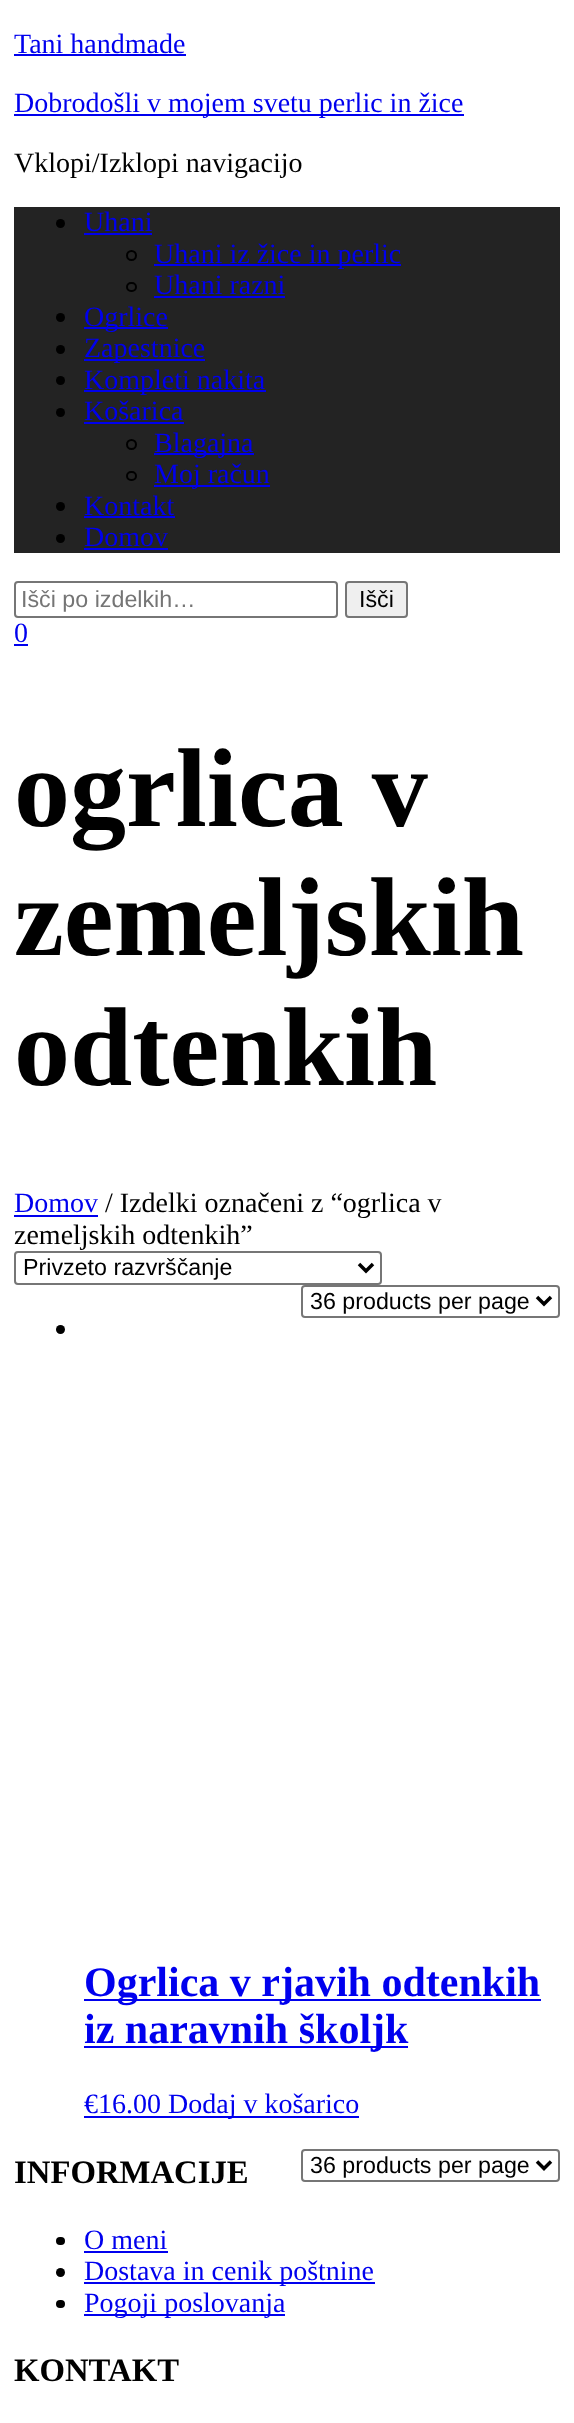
async function draw(canvas) {
  canvas.width = 574
  canvas.height = 2423
  const ctx = canvas.getContext('2d')
  ctx.miterLimit = 4
  ctx.fontKerning = 'normal'

  ctx.fillStyle = '#fff'
  ctx.fillRect(0, 0, 574, 2423)
  ctx.font = '28px Liberation Serif'
  ctx.fillStyle = '#00e'
  ctx.fillText('Tani handmade', 14, 53)
  ctx.fillRect(14, 54, 172, 2)
  ctx.fillRect(14, 114, 450, 2)
  ctx.fillText('Dobrodošli v mojem svetu perlic in žice', 14, 112)
  ctx.fillStyle = '#000'
  ctx.fillText('Vklopi/Izklopi navigacijo', 14, 172)
  ctx.fillStyle = '#232323'
  ctx.fillRect(14, 207, 546, 346)
  ctx.fillStyle = '#000'
  ctx.beginPath()
  ctx.arc(60.5, 223.5, 4.5, 0, 2 * Math.PI)
  ctx.fill()
  ctx.fillStyle = '#00e'
  ctx.fillText('Uhani', 84, 231)
  ctx.fillRect(84, 233, 68, 2)
  ctx.beginPath()
  ctx.arc(131.5, 255.5, 4.5, 0, 2 * Math.PI)
  ctx.strokeStyle = '#000'
  ctx.lineWidth = 2
  ctx.stroke()
  ctx.fillRect(154, 264, 247, 2)
  ctx.fillText('Uhani iz žice in perlic', 154, 263)
  ctx.beginPath()
  ctx.roundRect(127, 283, 9, 8, 4)
  ctx.stroke()
  ctx.fillText('Uhani razni', 154, 294)
  ctx.fillRect(154, 296, 131, 2)
  ctx.fillStyle = '#000'
  ctx.beginPath()
  ctx.arc(60.5, 317.5, 4.5, 0, 2 * Math.PI)
  ctx.fill()
  ctx.fillStyle = '#00e'
  ctx.fillRect(84, 327, 84, 2)
  ctx.fillText('Ogrlice', 84, 326)
  ctx.fillStyle = '#000'
  ctx.beginPath()
  ctx.arc(60.5, 349.5, 4.5, 0, 2 * Math.PI)
  ctx.fill()
  ctx.fillStyle = '#00e'
  ctx.fillRect(84, 359, 121, 2)
  ctx.fillText('Zapestnice', 84, 357)
  ctx.fillStyle = '#000'
  ctx.beginPath()
  ctx.arc(60.5, 380.5, 4.5, 0, 2 * Math.PI)
  ctx.fill()
  ctx.fillStyle = '#00e'
  ctx.fillRect(84, 390, 182, 2)
  ctx.fillText('Kompleti nakita', 84, 389)
  ctx.fillStyle = '#000'
  ctx.beginPath()
  ctx.arc(60.5, 412.5, 4.5, 0, 2 * Math.PI)
  ctx.fill()
  ctx.fillStyle = '#00e'
  ctx.fillText('Košarica', 84, 420)
  ctx.fillRect(84, 422, 100, 2)
  ctx.beginPath()
  ctx.arc(131.5, 444.5, 4.5, 0, 2 * Math.PI)
  ctx.stroke()
  ctx.fillRect(154, 453, 100, 2)
  ctx.fillText('Blagajna', 154, 452)
  ctx.beginPath()
  ctx.roundRect(127, 472, 9, 8, 4)
  ctx.stroke()
  ctx.fillRect(154, 485, 116, 2)
  ctx.fillText('Moj račun', 154, 483)
  ctx.fillStyle = '#000'
  ctx.beginPath()
  ctx.arc(60.5, 506.5, 4.5, 0, 2 * Math.PI)
  ctx.fill()
  ctx.fillStyle = '#00e'
  ctx.fillText('Kontakt', 84, 515)
  ctx.fillRect(84, 516, 91, 2)
  ctx.fillStyle = '#000'
  ctx.beginPath()
  ctx.arc(60.5, 538.5, 4.5, 0, 2 * Math.PI)
  ctx.fill()
  ctx.fillStyle = '#00e'
  ctx.fillText('Domov', 84, 546)
  ctx.fillRect(84, 548, 84, 2)
  ctx.beginPath()
  ctx.roundRect(15, 582, 322, 35, 3)
  ctx.strokeStyle = '#767676'
  ctx.stroke()
  ctx.font = '23.25px Liberation Sans'
  ctx.fillStyle = '#757575'
  ctx.fillText('Išči po izdelkih…', 21, 607)
  ctx.fillStyle = '#efefef'
  ctx.beginPath()
  ctx.roundRect(346, 582, 61, 35, 3)
  ctx.fill()
  ctx.stroke()
  ctx.fillStyle = '#000'
  ctx.fillText('Išči', 359, 607)
  ctx.font = '28px Liberation Serif'
  ctx.fillStyle = '#00e'
  ctx.fillText('0', 14, 642)
  ctx.fillRect(14, 644, 14, 2)
  ctx.font = 'bold 112px Liberation Serif'
  ctx.fillStyle = '#000'
  ctx.fillText('ogrlica v', 14, 826)
  ctx.fillText('zemeljskih', 14, 955)
  ctx.fillText('odtenkih', 14, 1085)
  ctx.font = '28px Liberation Serif'
  ctx.fillStyle = '#00e'
  ctx.fillText('Domov', 14, 1212)
  ctx.fillRect(14, 1215, 84, 2)
  ctx.fillStyle = '#000'
  ctx.fillText('/ Izdelki označeni z “ogrlica v', 105, 1212)
  ctx.fillText('zemeljskih odtenkih”', 14, 1244)
  ctx.beginPath()
  ctx.roundRect(15, 1252, 366, 32, 3)
  ctx.stroke()
  ctx.beginPath()
  ctx.moveTo(359, 1264)
  ctx.lineTo(366, 1271)
  ctx.lineTo(373, 1264)
  ctx.strokeStyle = '#000'
  ctx.lineWidth = 3.5
  ctx.stroke()
  ctx.font = '23.25px Liberation Sans'
  ctx.fillText('Privzeto razvrščanje', 23, 1275)
  ctx.beginPath()
  ctx.roundRect(302, 1286, 257, 31, 3)
  ctx.strokeStyle = '#767676'
  ctx.lineWidth = 2
  ctx.stroke()
  ctx.beginPath()
  ctx.moveTo(537, 1297)
  ctx.lineTo(544, 1304)
  ctx.lineTo(551, 1297)
  ctx.strokeStyle = '#000'
  ctx.lineWidth = 3.5
  ctx.stroke()
  ctx.fillText('36 products per page', 310, 1309)
  ctx.beginPath()
  ctx.arc(60.5, 1329.5, 4.5, 0, 2 * Math.PI)
  ctx.fill()
  ctx.fillStyle = '#00e'
  ctx.fillRect(84, 1999, 457, 2)
  ctx.font = 'bold 42px Liberation Serif'
  ctx.fillText('Ogrlica v rjavih odtenkih', 84, 1996)
  ctx.fillRect(84, 2046, 324, 2)
  ctx.fillText('iz naravnih školjk', 84, 2043)
  ctx.fillRect(84, 2116, 275, 2)
  ctx.font = '28px Liberation Serif'
  ctx.fillText('€16.00 Dodaj v košarico', 84, 2113)
  ctx.beginPath()
  ctx.roundRect(302, 2150, 257, 31, 3)
  ctx.strokeStyle = '#767676'
  ctx.lineWidth = 2
  ctx.stroke()
  ctx.beginPath()
  ctx.moveTo(537, 2161.5)
  ctx.lineTo(544, 2168.5)
  ctx.lineTo(551, 2161.5)
  ctx.strokeStyle = '#000'
  ctx.lineWidth = 3.5
  ctx.stroke()
  ctx.font = '23.25px Liberation Sans'
  ctx.fillStyle = '#000'
  ctx.fillText('36 products per page', 310, 2173)
  ctx.font = 'bold 32.75px Liberation Serif'
  ctx.fillText('INFORMACIJE', 14, 2183)
  ctx.beginPath()
  ctx.roundRect(56, 2237, 9, 8, 4)
  ctx.fill()
  ctx.font = '28px Liberation Serif'
  ctx.fillStyle = '#00e'
  ctx.fillText('O meni', 84, 2249)
  ctx.fillRect(84, 2251, 84, 2)
  ctx.fillStyle = '#000'
  ctx.beginPath()
  ctx.arc(60.5, 2272.5, 4.5, 0, 2 * Math.PI)
  ctx.fill()
  ctx.fillStyle = '#00e'
  ctx.fillRect(84, 2282, 291, 2)
  ctx.fillText('Dostava in cenik poštnine', 84, 2280)
  ctx.fillStyle = '#000'
  ctx.beginPath()
  ctx.roundRect(56, 2300, 9, 8, 4)
  ctx.fill()
  ctx.fillStyle = '#00e'
  ctx.fillRect(84, 2314, 201, 2)
  ctx.fillText('Pogoji poslovanja', 84, 2312)
  ctx.font = 'bold 32.75px Liberation Serif'
  ctx.fillStyle = '#000'
  ctx.fillText('KONTAKT', 14, 2381)
}

draw(document.querySelector('canvas'))
